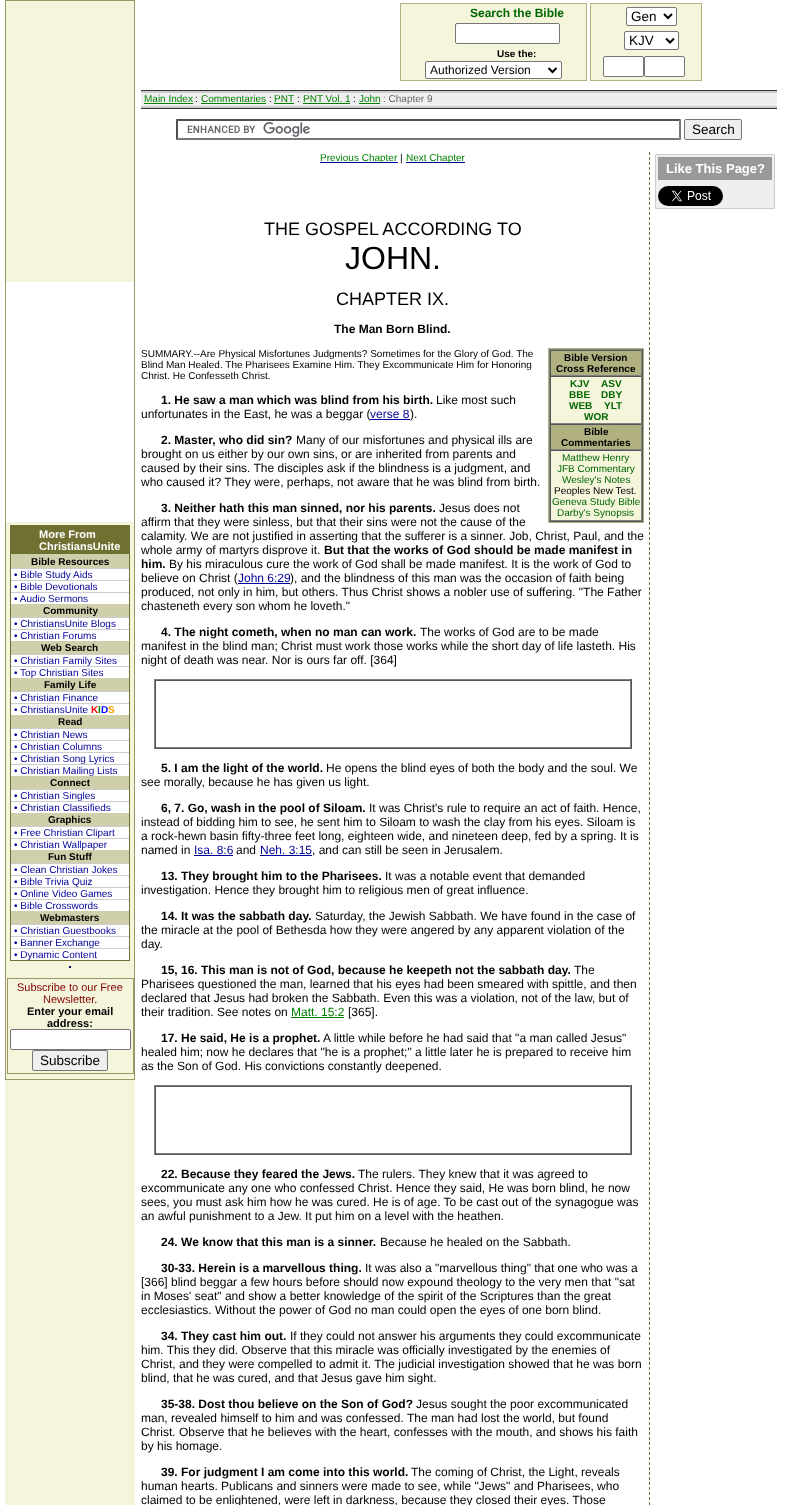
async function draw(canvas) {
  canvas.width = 788
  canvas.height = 1505
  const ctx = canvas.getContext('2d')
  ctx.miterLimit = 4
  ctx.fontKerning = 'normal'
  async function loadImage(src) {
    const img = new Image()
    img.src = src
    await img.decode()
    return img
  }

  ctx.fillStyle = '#fff'
  ctx.fillRect(0, 0, 788, 1505)
  ctx.fillStyle = '#f5f5dc'
  ctx.fillRect(5, 1080, 130, 425)
  ctx.fillStyle = '#996'
  ctx.fillRect(5, 0, 130, 1080)
  ctx.fillStyle = '#f5f5dc'
  ctx.fillRect(6, 1, 128, 1078)
  ctx.fillStyle = '#fff'
  ctx.fillRect(6, 282, 128, 240)
  ctx.strokeStyle = '#707032'
  ctx.strokeRect(10.5, 525.5, 119, 435)
  ctx.fillStyle = '#707032'
  ctx.fillRect(11, 526, 118, 28)
  ctx.fillStyle = '#cfcfab'
  ctx.fillRect(11, 554, 118, 14)
  ctx.font = 'bold 11px Liberation Sans'
  ctx.fillStyle = '#fff'
  ctx.fillText('More From', 39, 538)
  ctx.fillText('ChristiansUnite', 39, 550)
  ctx.font = 'bold 10px Liberation Sans'
  ctx.fillStyle = '#000'
  ctx.fillText('Bible Resources', 31, 565)
  ctx.fillStyle = '#cdcdcd'
  ctx.fillRect(11, 568, 118, 1)
  ctx.fillStyle = '#fff'
  ctx.fillRect(11, 569, 118, 11)
  ctx.fillStyle = '#cdcdcd'
  ctx.fillRect(11, 580, 118, 1)
  ctx.font = '10px Liberation Sans'
  ctx.fillStyle = '#009'
  ctx.fillText('• Bible Study Aids', 14, 578)
  ctx.fillStyle = '#fff'
  ctx.fillRect(11, 581, 118, 11)
  ctx.fillStyle = '#009'
  ctx.fillText('• Bible Devotionals', 14, 590)
  ctx.fillStyle = '#cdcdcd'
  ctx.fillRect(11, 592, 118, 1)
  ctx.fillStyle = '#fff'
  ctx.fillRect(11, 593, 118, 11)
  ctx.fillStyle = '#009'
  ctx.fillText('• Audio Sermons', 14, 602)
  ctx.fillStyle = '#cfcfab'
  ctx.fillRect(11, 604, 118, 13)
  ctx.font = 'bold 10px Liberation Sans'
  ctx.fillStyle = '#000'
  ctx.fillText('Community', 43, 614)
  ctx.fillStyle = '#cdcdcd'
  ctx.fillRect(11, 617, 118, 1)
  ctx.fillStyle = '#fff'
  ctx.fillRect(11, 618, 118, 11)
  ctx.fillStyle = '#cdcdcd'
  ctx.fillRect(11, 629, 118, 1)
  ctx.font = '10px Liberation Sans'
  ctx.fillStyle = '#009'
  ctx.fillText('• ChristiansUnite Blogs', 14, 627)
  ctx.fillStyle = '#fff'
  ctx.fillRect(11, 630, 118, 11)
  ctx.fillStyle = '#009'
  ctx.fillText('• Christian Forums', 14, 639)
  ctx.fillStyle = '#cfcfab'
  ctx.fillRect(11, 641, 118, 13)
  ctx.font = 'bold 10px Liberation Sans'
  ctx.fillStyle = '#000'
  ctx.fillText('Web Search', 41, 651)
  ctx.fillStyle = '#cdcdcd'
  ctx.fillRect(11, 654, 118, 1)
  ctx.fillStyle = '#fff'
  ctx.fillRect(11, 655, 118, 11)
  ctx.fillStyle = '#cdcdcd'
  ctx.fillRect(11, 666, 118, 1)
  ctx.font = '10px Liberation Sans'
  ctx.fillStyle = '#009'
  ctx.fillText('• Christian Family Sites', 14, 664)
  ctx.fillStyle = '#fff'
  ctx.fillRect(11, 667, 118, 11)
  ctx.fillStyle = '#cfcfab'
  ctx.fillRect(11, 678, 118, 13)
  ctx.fillStyle = '#009'
  ctx.fillText('• Top Christian Sites', 14, 676)
  ctx.font = 'bold 10px Liberation Sans'
  ctx.fillStyle = '#000'
  ctx.fillText('Family Life', 44, 688)
  ctx.fillStyle = '#cdcdcd'
  ctx.fillRect(11, 691, 118, 1)
  ctx.fillStyle = '#fff'
  ctx.fillRect(11, 692, 118, 11)
  ctx.font = '10px Liberation Sans'
  ctx.fillStyle = '#009'
  ctx.fillText('• Christian Finance', 14, 701)
  ctx.fillStyle = '#cdcdcd'
  ctx.fillRect(11, 703, 118, 1)
  ctx.fillStyle = '#fff'
  ctx.fillRect(11, 704, 118, 11)
  ctx.fillStyle = '#009'
  ctx.fillText('• ChristiansUnite', 14, 713)
  ctx.font = 'bold 10px Liberation Sans'
  ctx.fillStyle = '#f00'
  ctx.fillText('K', 91, 713)
  ctx.fillStyle = '#008000'
  ctx.fillText('I', 98, 713)
  ctx.fillStyle = '#00f'
  ctx.fillText('D', 101, 713)
  ctx.fillStyle = '#ffa500'
  ctx.fillText('S', 108, 713)
  ctx.fillStyle = '#cfcfab'
  ctx.fillRect(11, 715, 118, 13)
  ctx.fillStyle = '#000'
  ctx.fillText('Read', 58, 725)
  ctx.fillStyle = '#cdcdcd'
  ctx.fillRect(11, 728, 118, 1)
  ctx.fillStyle = '#fff'
  ctx.fillRect(11, 729, 118, 11)
  ctx.font = '10px Liberation Sans'
  ctx.fillStyle = '#009'
  ctx.fillText('• Christian News', 14, 738)
  ctx.fillStyle = '#cdcdcd'
  ctx.fillRect(11, 740, 118, 1)
  ctx.fillStyle = '#fff'
  ctx.fillRect(11, 741, 118, 11)
  ctx.fillStyle = '#009'
  ctx.fillText('• Christian Columns', 14, 750)
  ctx.fillStyle = '#cdcdcd'
  ctx.fillRect(11, 752, 118, 1)
  ctx.fillStyle = '#fff'
  ctx.fillRect(11, 753, 118, 11)
  ctx.fillStyle = '#cdcdcd'
  ctx.fillRect(11, 764, 118, 1)
  ctx.fillStyle = '#009'
  ctx.fillText('• Christian Song Lyrics', 14, 762)
  ctx.fillStyle = '#fff'
  ctx.fillRect(11, 765, 118, 11)
  ctx.fillStyle = '#cfcfab'
  ctx.fillRect(11, 776, 118, 13)
  ctx.fillStyle = '#009'
  ctx.fillText('• Christian Mailing Lists', 14, 774)
  ctx.font = 'bold 10px Liberation Sans'
  ctx.fillStyle = '#000'
  ctx.fillText('Connect', 50, 786)
  ctx.fillStyle = '#cdcdcd'
  ctx.fillRect(11, 789, 118, 1)
  ctx.fillStyle = '#fff'
  ctx.fillRect(11, 790, 118, 11)
  ctx.fillStyle = '#cdcdcd'
  ctx.fillRect(11, 801, 118, 1)
  ctx.font = '10px Liberation Sans'
  ctx.fillStyle = '#009'
  ctx.fillText('• Christian Singles', 14, 799)
  ctx.fillStyle = '#fff'
  ctx.fillRect(11, 802, 118, 11)
  ctx.fillStyle = '#009'
  ctx.fillText('• Christian Classifieds', 14, 811)
  ctx.fillStyle = '#cfcfab'
  ctx.fillRect(11, 813, 118, 13)
  ctx.font = 'bold 10px Liberation Sans'
  ctx.fillStyle = '#000'
  ctx.fillText('Graphics', 48, 823)
  ctx.fillStyle = '#cdcdcd'
  ctx.fillRect(11, 826, 118, 1)
  ctx.fillStyle = '#fff'
  ctx.fillRect(11, 827, 118, 11)
  ctx.fillStyle = '#cdcdcd'
  ctx.fillRect(11, 838, 118, 1)
  ctx.font = '10px Liberation Sans'
  ctx.fillStyle = '#009'
  ctx.fillText('• Free Christian Clipart', 14, 836)
  ctx.fillStyle = '#fff'
  ctx.fillRect(11, 839, 118, 11)
  ctx.fillStyle = '#cfcfab'
  ctx.fillRect(11, 850, 118, 13)
  ctx.fillStyle = '#009'
  ctx.fillText('• Christian Wallpaper', 14, 848)
  ctx.font = 'bold 10px Liberation Sans'
  ctx.fillStyle = '#000'
  ctx.fillText('Fun Stuff', 48, 860)
  ctx.fillStyle = '#cdcdcd'
  ctx.fillRect(11, 863, 118, 1)
  ctx.fillStyle = '#fff'
  ctx.fillRect(11, 864, 118, 11)
  ctx.font = '10px Liberation Sans'
  ctx.fillStyle = '#009'
  ctx.fillText('• Clean Christian Jokes', 14, 873)
  ctx.fillStyle = '#cdcdcd'
  ctx.fillRect(11, 875, 118, 1)
  ctx.fillStyle = '#fff'
  ctx.fillRect(11, 876, 118, 11)
  ctx.fillStyle = '#009'
  ctx.fillText('• Bible Trivia Quiz', 14, 885)
  ctx.fillStyle = '#cdcdcd'
  ctx.fillRect(11, 887, 118, 1)
  ctx.fillStyle = '#fff'
  ctx.fillRect(11, 888, 118, 11)
  ctx.fillStyle = '#009'
  ctx.fillText('• Online Video Games', 14, 897)
  ctx.fillStyle = '#cdcdcd'
  ctx.fillRect(11, 899, 118, 1)
  ctx.fillStyle = '#fff'
  ctx.fillRect(11, 900, 118, 11)
  ctx.fillStyle = '#009'
  ctx.fillText('• Bible Crosswords', 14, 909)
  ctx.fillStyle = '#cfcfab'
  ctx.fillRect(11, 911, 118, 13)
  ctx.font = 'bold 10px Liberation Sans'
  ctx.fillStyle = '#000'
  ctx.fillText('Webmasters', 40, 921)
  ctx.fillStyle = '#cdcdcd'
  ctx.fillRect(11, 924, 118, 1)
  ctx.fillStyle = '#fff'
  ctx.fillRect(11, 925, 118, 11)
  ctx.font = '10px Liberation Sans'
  ctx.fillStyle = '#009'
  ctx.fillText('• Christian Guestbooks', 14, 934)
  ctx.fillStyle = '#cdcdcd'
  ctx.fillRect(11, 936, 118, 1)
  ctx.fillStyle = '#fff'
  ctx.fillRect(11, 937, 118, 11)
  ctx.fillStyle = '#cdcdcd'
  ctx.fillRect(11, 948, 118, 1)
  ctx.fillStyle = '#009'
  ctx.fillText('• Banner Exchange', 14, 946)
  ctx.fillStyle = '#fff'
  ctx.fillRect(11, 949, 118, 11)
  ctx.fillStyle = '#009'
  ctx.fillText('• Dynamic Content', 14, 958)
  ctx.fillStyle = '#006'
  ctx.fillRect(69, 966, 2, 2)
  ctx.fillStyle = '#996'
  ctx.fillRect(7, 978, 127, 96)
  ctx.fillStyle = '#f5f5dc'
  ctx.fillRect(8, 979, 125, 94)
  ctx.font = '11px Liberation Sans'
  ctx.fillStyle = '#800000'
  ctx.fillText('Subscribe to our Free', 17, 991)
  ctx.fillText('Newsletter.', 43, 1003)
  ctx.font = 'bold 11px Liberation Sans'
  ctx.fillStyle = '#000'
  ctx.fillText('Enter your email', 27, 1015)
  ctx.fillText('address:', 47, 1027)
  ctx.fillStyle = '#fff'
  ctx.beginPath()
  ctx.roundRect(10.5, 1029.5, 120, 20, 1.5)
  ctx.fill()
  ctx.strokeStyle = '#767676'
  ctx.stroke()
  ctx.fillStyle = '#efefef'
  ctx.beginPath()
  ctx.roundRect(32.5, 1050.5, 75, 20, 1.5)
  ctx.fill()
  ctx.stroke()
  ctx.font = '13.5px Liberation Sans'
  ctx.fillStyle = '#000'
  ctx.fillText('Subscribe', 40, 1065)
  ctx.fillStyle = '#b0b080'
  ctx.fillRect(400, 3, 187, 78)
  ctx.fillStyle = '#f5f5dc'
  ctx.fillRect(401, 4, 185, 76)
  ctx.font = 'bold 12px Liberation Sans'
  ctx.fillStyle = '#060'
  ctx.fillText('Search the Bible', 470, 17)
  ctx.fillStyle = '#fff'
  ctx.beginPath()
  ctx.roundRect(455.5, 23.5, 104, 20, 1.5)
  ctx.fill()
  ctx.stroke()
  ctx.font = 'bold 10px Liberation Sans'
  ctx.fillStyle = '#000'
  ctx.fillText('Use the:', 497, 57)
  ctx.fillStyle = '#fff'
  ctx.beginPath()
  ctx.roundRect(425.5, 61.5, 136, 17, 1.5)
  ctx.fill()
  ctx.stroke()
  ctx.beginPath()
  ctx.moveTo(548.5, 68)
  ctx.lineTo(552.5, 72)
  ctx.lineTo(556.5, 68)
  ctx.strokeStyle = '#000'
  ctx.lineWidth = 2
  ctx.stroke()
  ctx.font = '12px Liberation Sans'
  ctx.fillStyle = '#000'
  ctx.fillText('Authorized Version', 430, 74)
  ctx.fillStyle = '#b0b080'
  ctx.fillRect(590, 3, 112, 78)
  ctx.fillStyle = '#f5f5dc'
  ctx.fillRect(591, 4, 110, 76)
  ctx.fillStyle = '#fff'
  ctx.beginPath()
  ctx.roundRect(626.5, 7.5, 50, 18, 1.5)
  ctx.fill()
  ctx.strokeStyle = '#767676'
  ctx.lineWidth = 1
  ctx.stroke()
  ctx.beginPath()
  ctx.moveTo(664, 14)
  ctx.lineTo(668, 18)
  ctx.lineTo(672, 14)
  ctx.strokeStyle = '#000'
  ctx.lineWidth = 2
  ctx.stroke()
  ctx.font = '13.5px Liberation Sans'
  ctx.fillStyle = '#000'
  ctx.fillText('Gen', 631, 21)
  ctx.fillStyle = '#fff'
  ctx.beginPath()
  ctx.roundRect(624.5, 31.5, 54, 18, 1.5)
  ctx.fill()
  ctx.strokeStyle = '#767676'
  ctx.lineWidth = 1
  ctx.stroke()
  ctx.beginPath()
  ctx.moveTo(666, 38.5)
  ctx.lineTo(670, 42.5)
  ctx.lineTo(674, 38.5)
  ctx.strokeStyle = '#000'
  ctx.lineWidth = 2
  ctx.stroke()
  ctx.fillStyle = '#000'
  ctx.fillText('KJV', 629, 45)
  ctx.fillStyle = '#fff'
  ctx.beginPath()
  ctx.roundRect(603.5, 56.5, 40, 20, 1.5)
  ctx.fill()
  ctx.strokeStyle = '#767676'
  ctx.lineWidth = 1
  ctx.stroke()
  ctx.beginPath()
  ctx.roundRect(644.5, 56.5, 40, 20, 1.5)
  ctx.fill()
  ctx.stroke()
  ctx.fillStyle = '#333'
  ctx.fillRect(141, 90, 636, 1)
  ctx.fillStyle = '#ccc'
  ctx.fillRect(141, 91, 636, 2)
  ctx.fillStyle = '#efefef'
  ctx.fillRect(141, 93, 636, 13)
  ctx.font = '10px Liberation Sans'
  ctx.fillStyle = '#008000'
  ctx.fillText('Main Index', 144, 102)
  ctx.fillRect(144, 103, 49, 1)
  ctx.fillStyle = '#000'
  ctx.fillText(':', 195, 102)
  ctx.fillStyle = '#008000'
  ctx.fillText('Commentaries', 201, 102)
  ctx.fillRect(201, 103, 65, 1)
  ctx.fillStyle = '#000'
  ctx.fillText(':', 269, 102)
  ctx.fillStyle = '#008000'
  ctx.fillText('PNT', 274, 102)
  ctx.fillRect(274, 103, 20, 1)
  ctx.fillStyle = '#000'
  ctx.fillText(':', 297, 102)
  ctx.fillStyle = '#008000'
  ctx.fillText('PNT Vol. 1', 303, 102)
  ctx.fillRect(303, 103, 47, 1)
  ctx.fillStyle = '#000'
  ctx.fillText(':', 353, 102)
  ctx.fillStyle = '#008000'
  ctx.fillText('John', 359, 102)
  ctx.fillRect(359, 103, 21, 1)
  ctx.fillStyle = '#666'
  ctx.fillText(': Chapter 9', 383, 102)
  ctx.fillStyle = '#ccc'
  ctx.fillRect(141, 106, 636, 2)
  ctx.fillStyle = '#333'
  ctx.fillRect(141, 108, 636, 1)
  ctx.drawImage(await loadImage('image0.png'), 187, 122, 123, 15)
  ctx.fillStyle = '#4f4f4f'
  ctx.beginPath()
  ctx.moveTo(176, 119)
  ctx.lineTo(681, 119)
  ctx.lineTo(679, 121)
  ctx.lineTo(178, 121)
  ctx.closePath()
  ctx.fill()
  ctx.fillStyle = '#767676'
  ctx.beginPath()
  ctx.moveTo(681, 119)
  ctx.lineTo(681, 140)
  ctx.lineTo(679, 138)
  ctx.lineTo(679, 121)
  ctx.closePath()
  ctx.fill()
  ctx.beginPath()
  ctx.moveTo(681, 140)
  ctx.lineTo(176, 140)
  ctx.lineTo(178, 138)
  ctx.lineTo(679, 138)
  ctx.closePath()
  ctx.fill()
  ctx.fillStyle = '#4f4f4f'
  ctx.beginPath()
  ctx.moveTo(176, 140)
  ctx.lineTo(176, 119)
  ctx.lineTo(178, 121)
  ctx.lineTo(178, 138)
  ctx.closePath()
  ctx.fill()
  ctx.fillStyle = '#efefef'
  ctx.beginPath()
  ctx.roundRect(684.5, 119.5, 57, 20, 1.5)
  ctx.fill()
  ctx.stroke()
  ctx.font = '13.5px Liberation Sans'
  ctx.fillStyle = '#000'
  ctx.fillText('Search', 692, 134)
  ctx.fillStyle = '#009'
  ctx.fillRect(320, 162, 78, 1)
  ctx.font = '10px Liberation Sans'
  ctx.fillStyle = '#008000'
  ctx.fillText('Previous Chapter', 320, 161)
  ctx.fillStyle = '#000'
  ctx.fillText('|', 400, 161)
  ctx.fillStyle = '#009'
  ctx.fillRect(406, 162, 59, 1)
  ctx.fillStyle = '#008000'
  ctx.fillText('Next Chapter', 406, 161)
  ctx.font = '18px Liberation Sans'
  ctx.fillStyle = '#000'
  ctx.fillText('THE GOSPEL ACCORDING TO', 264, 235)
  ctx.font = '32px Liberation Sans'
  ctx.fillText('JOHN.', 345, 269)
  ctx.font = '18px Liberation Sans'
  ctx.fillText('CHAPTER IX.', 336, 305)
  ctx.font = 'bold 12px Liberation Sans'
  ctx.fillText('The Man Born Blind.', 334, 333)
  ctx.font = '10px Liberation Sans'
  ctx.fillText('SUMMARY.--Are Physical Misfortunes Judgments? Sometimes for the Glory of God. The', 141, 357)
  ctx.fillStyle = '#b0b080'
  ctx.fillRect(548, 348, 96, 175)
  ctx.fillStyle = '#808080'
  ctx.fillRect(549, 349, 94, 1)
  ctx.fillStyle = '#555'
  ctx.fillRect(642, 349, 1, 173)
  ctx.fillRect(549, 521, 94, 1)
  ctx.fillStyle = '#808080'
  ctx.fillRect(549, 349, 1, 173)
  ctx.fillStyle = '#555'
  ctx.fillRect(550, 350, 92, 1)
  ctx.fillStyle = '#808080'
  ctx.fillRect(641, 350, 1, 26)
  ctx.fillRect(550, 375, 92, 1)
  ctx.fillStyle = '#555'
  ctx.fillRect(550, 350, 1, 26)
  ctx.font = 'bold 10px Liberation Sans'
  ctx.fillStyle = '#000'
  ctx.fillText('Bible Version', 564, 361)
  ctx.fillText('Cross Reference', 556, 372)
  ctx.fillStyle = '#f5f5dc'
  ctx.fillRect(551, 377, 90, 46)
  ctx.fillStyle = '#555'
  ctx.fillRect(550, 376, 92, 1)
  ctx.fillStyle = '#808080'
  ctx.fillRect(641, 376, 1, 48)
  ctx.fillRect(550, 423, 92, 1)
  ctx.fillStyle = '#555'
  ctx.fillRect(550, 376, 1, 48)
  ctx.fillStyle = '#060'
  ctx.fillText('KJV', 570, 387)
  ctx.fillText('ASV', 601, 387)
  ctx.fillText('BBE', 569, 398)
  ctx.fillText('DBY', 601, 398)
  ctx.fillText('WEB', 569, 409)
  ctx.fillText('YLT', 604, 409)
  ctx.fillText('WOR', 584, 420)
  ctx.fillStyle = '#555'
  ctx.fillRect(550, 424, 92, 1)
  ctx.fillStyle = '#808080'
  ctx.fillRect(641, 424, 1, 26)
  ctx.fillRect(550, 449, 92, 1)
  ctx.fillStyle = '#555'
  ctx.fillRect(550, 424, 1, 26)
  ctx.fillStyle = '#000'
  ctx.fillText('Bible', 584, 435)
  ctx.fillText('Commentaries', 561, 446)
  ctx.fillStyle = '#f5f5dc'
  ctx.fillRect(551, 451, 90, 69)
  ctx.fillStyle = '#555'
  ctx.fillRect(550, 450, 92, 1)
  ctx.fillStyle = '#808080'
  ctx.fillRect(641, 450, 1, 71)
  ctx.fillRect(550, 520, 92, 1)
  ctx.fillStyle = '#555'
  ctx.fillRect(550, 450, 1, 71)
  ctx.font = '10px Liberation Sans'
  ctx.fillStyle = '#060'
  ctx.fillText('Matthew Henry', 562, 461)
  ctx.fillText('JFB Commentary', 557, 472)
  ctx.fillText('Wesley\'s Notes', 562, 483)
  ctx.fillStyle = '#000'
  ctx.fillText('Peoples New Test.', 554, 494)
  ctx.fillStyle = '#060'
  ctx.fillText('Geneva Study Bible', 552, 505)
  ctx.fillText('Darby\'s Synopsis', 557, 516)
  ctx.fillStyle = '#000'
  ctx.fillText('Blind Man Healed. The Pharisees Examine Him. They Excommunicate Him for Honoring', 141, 368)
  ctx.fillText('Christ. He Confesseth Christ.', 141, 379)
  ctx.font = 'bold 12px Liberation Sans'
  ctx.fillText('1. He saw a man which was blind from his birth.', 161, 404)
  ctx.font = '12px Liberation Sans'
  ctx.fillText('Like most such', 436, 404)
  ctx.fillText('unfortunates in the East, he was a beggar (', 141, 418)
  ctx.fillStyle = '#009'
  ctx.fillText('verse 8', 370, 418)
  ctx.fillRect(370, 419, 40, 1)
  ctx.fillStyle = '#000'
  ctx.fillText(').', 410, 418)
  ctx.font = 'bold 12px Liberation Sans'
  ctx.fillText('2. Master, who did sin?', 161, 444)
  ctx.font = '12px Liberation Sans'
  ctx.fillText('Many of our misfortunes and physical ills are', 296, 444)
  ctx.fillText('brought on us either by our own sins, or are inherited from parents and', 141, 458)
  ctx.fillText('caused by their sins. The disciples ask if the blindness is a judgment, and', 141, 472)
  ctx.fillText('who caused it? They were, perhaps, not aware that he was blind from birth.', 141, 486)
  ctx.font = 'bold 12px Liberation Sans'
  ctx.fillText('3. Neither hath this man sinned, nor his parents.', 161, 512)
  ctx.font = '12px Liberation Sans'
  ctx.fillText('Jesus does not', 439, 512)
  ctx.fillText('affirm that they were sinless, but that their sins were not the cause of the', 141, 526)
  ctx.fillText('calamity. We are not justified in asserting that the sufferer is a sinner. Job, Christ, Paul, and the', 141, 540)
  ctx.fillText('whole army of martyrs disprove it.', 141, 554)
  ctx.font = 'bold 12px Liberation Sans'
  ctx.fillText('But that the works of God should be made manifest in', 324, 554)
  ctx.fillText('him.', 141, 568)
  ctx.font = '12px Liberation Sans'
  ctx.fillText('By his miraculous cure the work of God shall be made manifest. It is the work of God to', 169, 568)
  ctx.fillText('believe on Christ (', 141, 582)
  ctx.fillStyle = '#009'
  ctx.fillText('John 6:29', 238, 582)
  ctx.fillRect(238, 583, 52, 1)
  ctx.fillStyle = '#000'
  ctx.fillText('), and the blindness of this man was the occasion of faith being', 290, 582)
  ctx.fillText('produced, not only in him, but others. Thus Christ shows a nobler use of suffering. "The Father', 141, 596)
  ctx.fillText('chasteneth every son whom he loveth."', 141, 610)
  ctx.font = 'bold 12px Liberation Sans'
  ctx.fillText('4. The night cometh, when no man can work.', 161, 636)
  ctx.font = '12px Liberation Sans'
  ctx.fillText('The works of God are to be made', 420, 636)
  ctx.fillText('manifest in the blind man; Christ must work those works while the short day of life lasteth. His', 141, 650)
  ctx.fillText('night of death was near. Nor is ours far off. [364]', 141, 664)
  ctx.fillStyle = '#808080'
  ctx.fillRect(154, 679, 478, 1)
  ctx.fillStyle = '#555'
  ctx.fillRect(631, 679, 1, 70)
  ctx.fillRect(154, 748, 478, 1)
  ctx.fillStyle = '#808080'
  ctx.fillRect(154, 679, 1, 70)
  ctx.fillStyle = '#555'
  ctx.fillRect(155, 680, 476, 1)
  ctx.fillStyle = '#808080'
  ctx.fillRect(630, 680, 1, 68)
  ctx.fillRect(155, 747, 476, 1)
  ctx.fillStyle = '#555'
  ctx.fillRect(155, 680, 1, 68)
  ctx.font = 'bold 12px Liberation Sans'
  ctx.fillStyle = '#000'
  ctx.fillText('5. I am the light of the world.', 161, 772)
  ctx.font = '12px Liberation Sans'
  ctx.fillText('He opens the blind eyes of both the body and the soul. We', 326, 772)
  ctx.fillText('see morally, because he has given us light.', 141, 786)
  ctx.font = 'bold 12px Liberation Sans'
  ctx.fillText('6, 7. Go, wash in the pool of Siloam.', 161, 812)
  ctx.font = '12px Liberation Sans'
  ctx.fillText('It was Christ\'s rule to require an act of faith. Hence,', 369, 812)
  ctx.fillText('instead of bidding him to see, he sent him to Siloam to wash the clay from his eyes. Siloam is', 141, 826)
  ctx.fillText('a rock-hewn basin fifty-three feet long, eighteen wide, and nineteen deep, fed by a spring. It is', 141, 840)
  ctx.fillText('named in', 141, 854)
  ctx.fillStyle = '#009'
  ctx.fillText('Isa. 8:6', 194, 854)
  ctx.fillRect(194, 855, 39, 1)
  ctx.fillStyle = '#000'
  ctx.fillText('and', 236, 854)
  ctx.fillStyle = '#009'
  ctx.fillText('Neh. 3:15', 260, 854)
  ctx.fillRect(260, 855, 52, 1)
  ctx.fillStyle = '#000'
  ctx.fillText(', and can still be seen in Jerusalem.', 312, 854)
  ctx.font = 'bold 12px Liberation Sans'
  ctx.fillText('13. They brought him to the Pharisees.', 161, 880)
  ctx.font = '12px Liberation Sans'
  ctx.fillText('It was a notable event that demanded', 385, 880)
  ctx.fillText('investigation. Hence they brought him to religious men of great influence.', 141, 894)
  ctx.font = 'bold 12px Liberation Sans'
  ctx.fillText('14. It was the sabbath day.', 161, 920)
  ctx.font = '12px Liberation Sans'
  ctx.fillText('Saturday, the Jewish Sabbath. We have found in the case of', 315, 920)
  ctx.fillText('the miracle at the pool of Bethesda how they were angered by any apparent violation of the', 141, 934)
  ctx.fillText('day.', 141, 948)
  ctx.font = 'bold 12px Liberation Sans'
  ctx.fillText('15, 16. This man is not of God, because he keepeth not the sabbath day.', 161, 974)
  ctx.font = '12px Liberation Sans'
  ctx.fillText('The', 574, 974)
  ctx.fillText('Pharisees questioned the man, learned that his eyes had been smeared with spittle, and then', 141, 988)
  ctx.fillText('declared that Jesus had broken the Sabbath. Even this was a violation, not of the law, but of', 141, 1002)
  ctx.fillText('their tradition. See notes on', 141, 1016)
  ctx.fillStyle = '#008000'
  ctx.fillText('Matt. 15:2', 291, 1016)
  ctx.fillRect(291, 1017, 53, 1)
  ctx.fillStyle = '#000'
  ctx.fillText('[365].', 348, 1016)
  ctx.font = 'bold 12px Liberation Sans'
  ctx.fillText('17. He said, He is a prophet.', 161, 1042)
  ctx.font = '12px Liberation Sans'
  ctx.fillText('A little while before he had said that "a man called Jesus"', 323, 1042)
  ctx.fillText('healed him; now he declares that "he is a prophet;" a little later he is prepared to receive him', 141, 1056)
  ctx.fillText('as the Son of God. His convictions constantly deepened.', 141, 1070)
  ctx.fillStyle = '#808080'
  ctx.fillRect(154, 1085, 478, 1)
  ctx.fillStyle = '#555'
  ctx.fillRect(631, 1085, 1, 70)
  ctx.fillRect(154, 1154, 478, 1)
  ctx.fillStyle = '#808080'
  ctx.fillRect(154, 1085, 1, 70)
  ctx.fillStyle = '#555'
  ctx.fillRect(155, 1086, 476, 1)
  ctx.fillStyle = '#808080'
  ctx.fillRect(630, 1086, 1, 68)
  ctx.fillRect(155, 1153, 476, 1)
  ctx.fillStyle = '#555'
  ctx.fillRect(155, 1086, 1, 68)
  ctx.font = 'bold 12px Liberation Sans'
  ctx.fillStyle = '#000'
  ctx.fillText('22. Because they feared the Jews.', 161, 1178)
  ctx.font = '12px Liberation Sans'
  ctx.fillText('The rulers. They knew that it was agreed to', 358, 1178)
  ctx.fillText('excommunicate any one who confessed Christ. Hence they said, He was born blind, he now', 141, 1192)
  ctx.fillText('sees, you must ask him how he was cured. He is of age. To be cast out of the synagogue was', 141, 1206)
  ctx.fillText('an awful punishment to a Jew. It put him on a level with the heathen.', 141, 1220)
  ctx.font = 'bold 12px Liberation Sans'
  ctx.fillText('24. We know that this man is a sinner.', 161, 1246)
  ctx.font = '12px Liberation Sans'
  ctx.fillText('Because he healed on the Sabbath.', 380, 1246)
  ctx.font = 'bold 12px Liberation Sans'
  ctx.fillText('30-33. Herein is a marvellous thing.', 161, 1272)
  ctx.font = '12px Liberation Sans'
  ctx.fillText('It was also a "marvellous thing" that one who was a', 365, 1272)
  ctx.fillText('[366] blind beggar a few hours before should now expound theology to the very men that "sat', 141, 1286)
  ctx.fillText('in Moses\' seat" and show a better knowledge of the spirit of the Scriptures than the great', 141, 1300)
  ctx.fillText('ecclesiastics. Without the power of God no man could open the eyes of one born blind.', 141, 1314)
  ctx.font = 'bold 12px Liberation Sans'
  ctx.fillText('34. They cast him out.', 161, 1340)
  ctx.font = '12px Liberation Sans'
  ctx.fillText('If they could not answer his arguments they could excommunicate', 290, 1340)
  ctx.fillText('him. This they did. Observe that this miracle was officially investigated by the enemies of', 141, 1354)
  ctx.fillText('Christ, and they were compelled to admit it. The judicial investigation showed that he was born', 141, 1368)
  ctx.fillText('blind, that he was cured, and that Jesus gave him sight.', 141, 1382)
  ctx.font = 'bold 12px Liberation Sans'
  ctx.fillText('35-38. Dost thou believe on the Son of God?', 161, 1408)
  ctx.font = '12px Liberation Sans'
  ctx.fillText('Jesus sought the poor excommunicated', 416, 1408)
  ctx.fillText('man, revealed himself to him and was confessed. The man had lost the world, but found', 141, 1422)
  ctx.fillText('Christ. Observe that he believes with the heart, confesses with the mouth, and shows his faith', 141, 1436)
  ctx.fillText('by his homage.', 141, 1450)
  ctx.font = 'bold 12px Liberation Sans'
  ctx.fillText('39. For judgment I am come into this world.', 161, 1476)
  ctx.font = '12px Liberation Sans'
  ctx.fillText('The coming of Christ, the Light, reveals', 411, 1476)
  ctx.fillText('human hearts. Publicans and sinners were made to see, while "Jews" and Pharisees, who', 141, 1490)
  ctx.fillText('claimed to be enlightened, were left in darkness, because they closed their eyes. Those', 141, 1504)
  ctx.beginPath()
  ctx.moveTo(649.5, 152)
  ctx.lineTo(649.5, 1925)
  ctx.strokeStyle = '#707032'
  ctx.setLineDash([3, 2])
  ctx.stroke()
  ctx.fillStyle = '#efefef'
  ctx.beginPath()
  ctx.rect(655.5, 154.5, 119, 54)
  ctx.fill()
  ctx.strokeStyle = '#ccc'
  ctx.setLineDash([])
  ctx.stroke()
  ctx.fillStyle = '#999'
  ctx.fillRect(658, 157, 114, 23)
  ctx.font = 'bold 13px Liberation Sans'
  ctx.fillStyle = '#fff'
  ctx.fillText('Like This Page?', 666, 173)
  ctx.drawImage(await loadImage('image1.png'), 658, 186, 65, 20)
}

draw(document.querySelector('canvas'))
